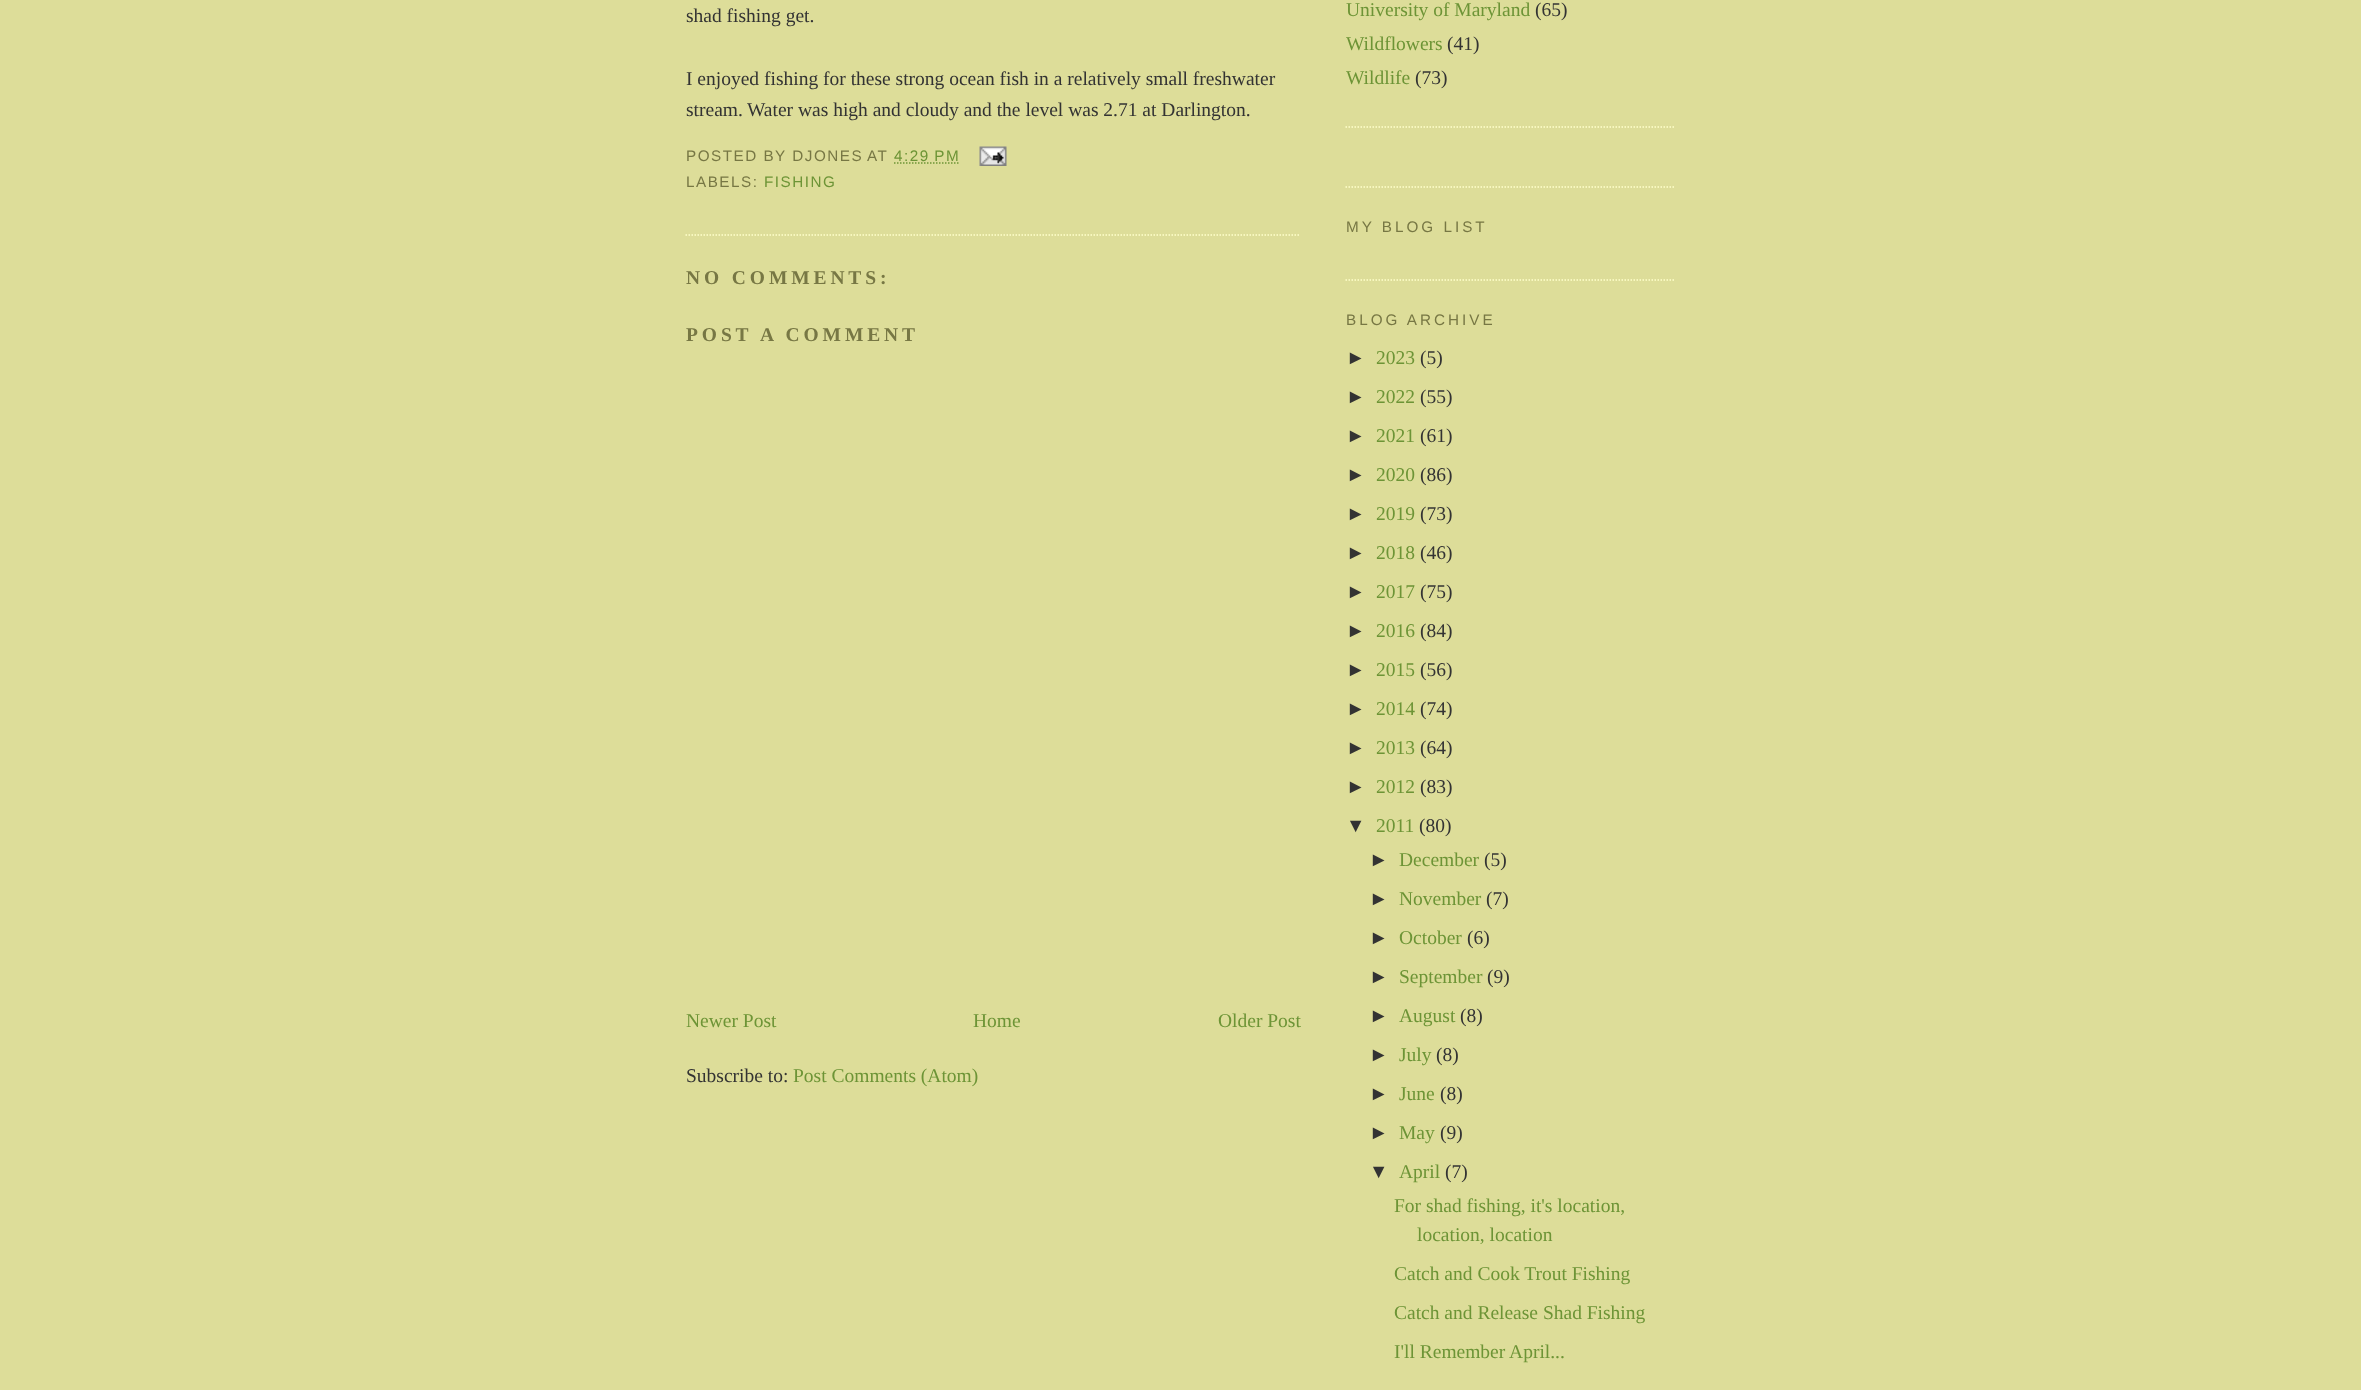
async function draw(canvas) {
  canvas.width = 2361
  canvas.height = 1390
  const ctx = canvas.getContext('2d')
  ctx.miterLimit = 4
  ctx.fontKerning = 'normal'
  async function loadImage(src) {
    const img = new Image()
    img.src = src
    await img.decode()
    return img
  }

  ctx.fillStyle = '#dd9'
  ctx.fillRect(0, 0, 2361, 1390)
  ctx.beginPath()
  ctx.moveTo(685.5, 235)
  ctx.lineTo(1300.5, 235)
  ctx.strokeStyle = '#ffc'
  ctx.lineWidth = 1.5
  ctx.setLineDash([1.5, 1.5])
  ctx.stroke()
  ctx.font = '19.5px Liberation Serif'
  ctx.fillStyle = '#333'
  ctx.fillText('shad fishing get.', 686, 22)
  ctx.fillText('I enjoyed fishing for these strong ocean fish in a relatively small freshwater', 686, 85)
  ctx.fillText('stream.', 686, 116)
  ctx.fillText('Water was high and cloudy and the level was 2.71 at Darlington.', 747, 116)
  ctx.letterSpacing = '1.5px'
  ctx.font = '15.25px Liberation Sans'
  ctx.fillStyle = '#774'
  ctx.fillText('POSTED BY DJONES', 686, 161)
  ctx.fillText('AT', 867, 161)
  ctx.fillStyle = '#6d9436'
  ctx.fillText('4:29 PM', 894, 161)
  ctx.beginPath()
  ctx.moveTo(894, 163)
  ctx.lineTo(960, 163)
  ctx.strokeStyle = '#6d9436'
  ctx.stroke()
  ctx.drawImage(await loadImage('image0.png'), 979, 146, 28, 20)
  ctx.fillStyle = '#774'
  ctx.fillText('LABELS:', 686, 187)
  ctx.fillStyle = '#6d9436'
  ctx.fillText('FISHING', 764, 187)
  ctx.letterSpacing = '3.9px'
  ctx.font = 'bold 19.5px Liberation Serif'
  ctx.fillStyle = '#774'
  ctx.fillText('NO COMMENTS:', 686, 284)
  ctx.fillText('POST A COMMENT', 686, 341)
  ctx.letterSpacing = '0px'
  ctx.font = '19.5px Liberation Serif'
  ctx.fillStyle = '#6d9436'
  ctx.fillText('Newer Post', 686, 1027)
  ctx.fillText('Home', 973, 1027)
  ctx.fillText('Older Post', 1218, 1027)
  ctx.fillStyle = '#333'
  ctx.fillText('Subscribe to:', 686, 1082)
  ctx.fillStyle = '#6d9436'
  ctx.fillText('Post Comments (Atom)', 793, 1082)
  ctx.beginPath()
  ctx.moveTo(1345.5, 127)
  ctx.lineTo(1675.5, 127)
  ctx.strokeStyle = '#ffc'
  ctx.stroke()
  ctx.fillText('University of Maryland', 1346, 16)
  ctx.fillStyle = '#333'
  ctx.fillText('(65)', 1535, 16)
  ctx.fillStyle = '#6d9436'
  ctx.fillText('Wildflowers', 1346, 50)
  ctx.fillStyle = '#333'
  ctx.fillText('(41)', 1447, 50)
  ctx.fillStyle = '#6d9436'
  ctx.fillText('Wildlife', 1346, 84)
  ctx.fillStyle = '#333'
  ctx.fillText('(73)', 1415, 84)
  ctx.beginPath()
  ctx.moveTo(1345.5, 187)
  ctx.lineTo(1675.5, 187)
  ctx.stroke()
  ctx.beginPath()
  ctx.moveTo(1345.5, 280)
  ctx.lineTo(1675.5, 280)
  ctx.stroke()
  ctx.letterSpacing = '3px'
  ctx.font = '15.25px Liberation Sans'
  ctx.fillStyle = '#774'
  ctx.fillText('MY BLOG LIST', 1346, 232)
  ctx.fillText('BLOG ARCHIVE', 1346, 325)
  ctx.letterSpacing = '0px'
  ctx.font = '19.5px Liberation Sans'
  ctx.fillStyle = '#333'
  ctx.fillText('►', 1346, 364)
  ctx.font = '19.5px Liberation Serif'
  ctx.fillStyle = '#6d9436'
  ctx.fillText('2023', 1376, 364)
  ctx.fillStyle = '#333'
  ctx.fillText('(5)', 1420, 364)
  ctx.font = '19.5px Liberation Sans'
  ctx.fillText('►', 1346, 403)
  ctx.font = '19.5px Liberation Serif'
  ctx.fillStyle = '#6d9436'
  ctx.fillText('2022', 1376, 403)
  ctx.fillStyle = '#333'
  ctx.fillText('(55)', 1420, 403)
  ctx.font = '19.5px Liberation Sans'
  ctx.fillText('►', 1346, 442)
  ctx.font = '19.5px Liberation Serif'
  ctx.fillStyle = '#6d9436'
  ctx.fillText('2021', 1376, 442)
  ctx.fillStyle = '#333'
  ctx.fillText('(61)', 1420, 442)
  ctx.font = '19.5px Liberation Sans'
  ctx.fillText('►', 1346, 481)
  ctx.font = '19.5px Liberation Serif'
  ctx.fillStyle = '#6d9436'
  ctx.fillText('2020', 1376, 481)
  ctx.fillStyle = '#333'
  ctx.fillText('(86)', 1420, 481)
  ctx.font = '19.5px Liberation Sans'
  ctx.fillText('►', 1346, 520)
  ctx.font = '19.5px Liberation Serif'
  ctx.fillStyle = '#6d9436'
  ctx.fillText('2019', 1376, 520)
  ctx.fillStyle = '#333'
  ctx.fillText('(73)', 1420, 520)
  ctx.font = '19.5px Liberation Sans'
  ctx.fillText('►', 1346, 559)
  ctx.font = '19.5px Liberation Serif'
  ctx.fillStyle = '#6d9436'
  ctx.fillText('2018', 1376, 559)
  ctx.fillStyle = '#333'
  ctx.fillText('(46)', 1420, 559)
  ctx.font = '19.5px Liberation Sans'
  ctx.fillText('►', 1346, 598)
  ctx.font = '19.5px Liberation Serif'
  ctx.fillStyle = '#6d9436'
  ctx.fillText('2017', 1376, 598)
  ctx.fillStyle = '#333'
  ctx.fillText('(75)', 1420, 598)
  ctx.font = '19.5px Liberation Sans'
  ctx.fillText('►', 1346, 637)
  ctx.font = '19.5px Liberation Serif'
  ctx.fillStyle = '#6d9436'
  ctx.fillText('2016', 1376, 637)
  ctx.fillStyle = '#333'
  ctx.fillText('(84)', 1420, 637)
  ctx.font = '19.5px Liberation Sans'
  ctx.fillText('►', 1346, 676)
  ctx.font = '19.5px Liberation Serif'
  ctx.fillStyle = '#6d9436'
  ctx.fillText('2015', 1376, 676)
  ctx.fillStyle = '#333'
  ctx.fillText('(56)', 1420, 676)
  ctx.font = '19.5px Liberation Sans'
  ctx.fillText('►', 1346, 715)
  ctx.font = '19.5px Liberation Serif'
  ctx.fillStyle = '#6d9436'
  ctx.fillText('2014', 1376, 715)
  ctx.fillStyle = '#333'
  ctx.fillText('(74)', 1420, 715)
  ctx.font = '19.5px Liberation Sans'
  ctx.fillText('►', 1346, 754)
  ctx.font = '19.5px Liberation Serif'
  ctx.fillStyle = '#6d9436'
  ctx.fillText('2013', 1376, 754)
  ctx.fillStyle = '#333'
  ctx.fillText('(64)', 1420, 754)
  ctx.font = '19.5px Liberation Sans'
  ctx.fillText('►', 1346, 793)
  ctx.font = '19.5px Liberation Serif'
  ctx.fillStyle = '#6d9436'
  ctx.fillText('2012', 1376, 793)
  ctx.fillStyle = '#333'
  ctx.fillText('(83)', 1420, 793)
  ctx.font = '19.5px Liberation Sans'
  ctx.fillText('▼', 1346, 832)
  ctx.font = '19.5px Liberation Serif'
  ctx.fillStyle = '#6d9436'
  ctx.fillText('2011', 1376, 832)
  ctx.fillStyle = '#333'
  ctx.fillText('(80)', 1419, 832)
  ctx.font = '19.5px Liberation Sans'
  ctx.fillText('►', 1369, 866)
  ctx.font = '19.5px Liberation Serif'
  ctx.fillStyle = '#6d9436'
  ctx.fillText('December', 1399, 866)
  ctx.fillStyle = '#333'
  ctx.fillText('(5)', 1484, 866)
  ctx.font = '19.5px Liberation Sans'
  ctx.fillText('►', 1369, 905)
  ctx.font = '19.5px Liberation Serif'
  ctx.fillStyle = '#6d9436'
  ctx.fillText('November', 1399, 905)
  ctx.fillStyle = '#333'
  ctx.fillText('(7)', 1486, 905)
  ctx.font = '19.5px Liberation Sans'
  ctx.fillText('►', 1369, 944)
  ctx.font = '19.5px Liberation Serif'
  ctx.fillStyle = '#6d9436'
  ctx.fillText('October', 1399, 944)
  ctx.fillStyle = '#333'
  ctx.fillText('(6)', 1467, 944)
  ctx.font = '19.5px Liberation Sans'
  ctx.fillText('►', 1369, 983)
  ctx.font = '19.5px Liberation Serif'
  ctx.fillStyle = '#6d9436'
  ctx.fillText('September', 1399, 983)
  ctx.fillStyle = '#333'
  ctx.fillText('(9)', 1487, 983)
  ctx.font = '19.5px Liberation Sans'
  ctx.fillText('►', 1369, 1022)
  ctx.font = '19.5px Liberation Serif'
  ctx.fillStyle = '#6d9436'
  ctx.fillText('August', 1399, 1022)
  ctx.fillStyle = '#333'
  ctx.fillText('(8)', 1460, 1022)
  ctx.font = '19.5px Liberation Sans'
  ctx.fillText('►', 1369, 1061)
  ctx.font = '19.5px Liberation Serif'
  ctx.fillStyle = '#6d9436'
  ctx.fillText('July', 1399, 1061)
  ctx.fillStyle = '#333'
  ctx.fillText('(8)', 1436, 1061)
  ctx.font = '19.5px Liberation Sans'
  ctx.fillText('►', 1369, 1100)
  ctx.font = '19.5px Liberation Serif'
  ctx.fillStyle = '#6d9436'
  ctx.fillText('June', 1399, 1100)
  ctx.fillStyle = '#333'
  ctx.fillText('(8)', 1440, 1100)
  ctx.font = '19.5px Liberation Sans'
  ctx.fillText('►', 1369, 1139)
  ctx.font = '19.5px Liberation Serif'
  ctx.fillStyle = '#6d9436'
  ctx.fillText('May', 1399, 1139)
  ctx.fillStyle = '#333'
  ctx.fillText('(9)', 1440, 1139)
  ctx.font = '19.5px Liberation Sans'
  ctx.fillText('▼', 1369, 1178)
  ctx.font = '19.5px Liberation Serif'
  ctx.fillStyle = '#6d9436'
  ctx.fillText('April', 1399, 1178)
  ctx.fillStyle = '#333'
  ctx.fillText('(7)', 1445, 1178)
  ctx.fillStyle = '#6d9436'
  ctx.fillText('For shad fishing, it\'s location,', 1394, 1212)
  ctx.fillText('location, location', 1417, 1241)
  ctx.fillText('Catch and Cook Trout Fishing', 1394, 1280)
  ctx.fillText('Catch and Release Shad Fishing', 1394, 1319)
  ctx.fillText('I\'ll Remember April...', 1394, 1358)
}

draw(document.querySelector('canvas'))
